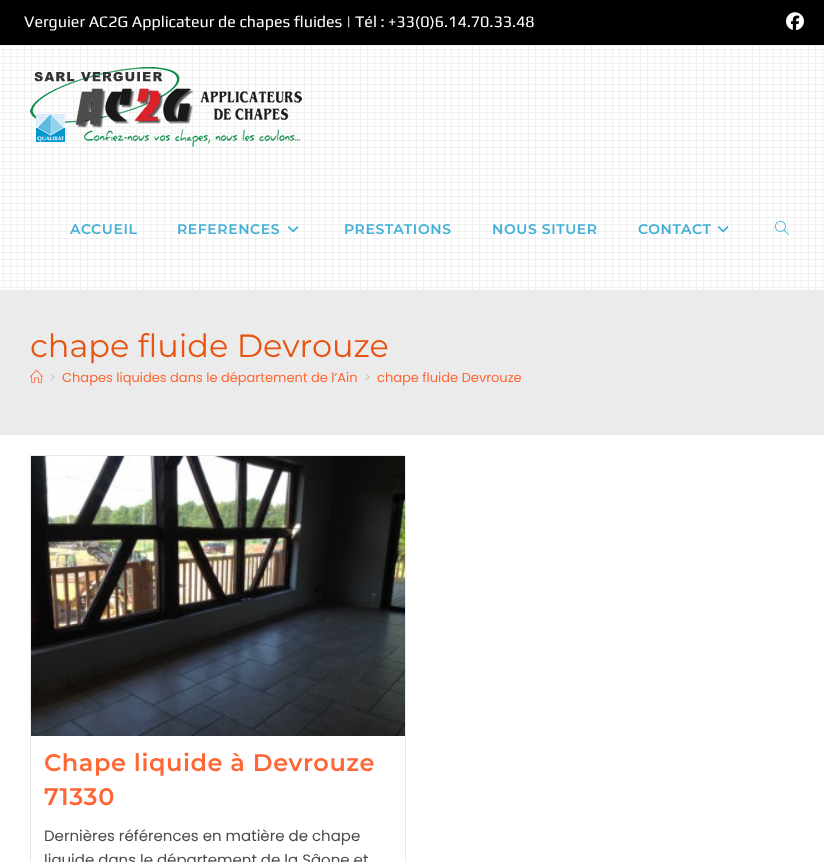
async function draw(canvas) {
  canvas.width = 824
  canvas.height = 862
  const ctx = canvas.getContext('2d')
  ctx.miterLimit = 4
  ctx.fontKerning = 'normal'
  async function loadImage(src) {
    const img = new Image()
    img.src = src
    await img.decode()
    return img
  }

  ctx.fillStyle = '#fff'
  ctx.fillRect(0, 0, 824, 862)
  ctx.fillStyle = '#000'
  ctx.fillRect(0, 0, 824, 45)
  ctx.fillStyle = '#f1f1f1'
  ctx.fillRect(0, 45, 824, 1)
  ctx.font = '16px Play'
  ctx.fillStyle = '#fff'
  ctx.fillText('Verguier AC2G Applicateur de chapes fluides | Tél : +33(0)6.14.70.33.48', 24, 27)
  ctx.drawImage(await loadImage('image0.png'), 786, 12, 18, 19)
  ctx.drawImage(await loadImage('image1.png'), 0, 46, 824, 244)
  ctx.drawImage(await loadImage('image2.png'), 30, 67, 272, 80)
  ctx.letterSpacing = '0.6px'
  ctx.font = '600 14px Montserrat'
  ctx.fillStyle = '#42b0d6'
  ctx.fillText('ACCUEIL', 70, 234)
  ctx.fillText('REFERENCES', 177, 234)
  ctx.drawImage(await loadImage('image3.png'), 288, 226, 11, 7)
  ctx.fillText('PRESTATIONS', 344, 234)
  ctx.fillText('NOUS SITUER', 492, 234)
  ctx.fillText('CONTACT', 638, 234)
  ctx.drawImage(await loadImage('image4.png'), 718, 226, 11, 7)
  ctx.drawImage(await loadImage('image5.png'), 775, 220, 14, 15)
  ctx.fillStyle = '#ebebeb'
  ctx.fillRect(0, 290, 824, 145)
  ctx.letterSpacing = '0px'
  ctx.font = '32px Montserrat'
  ctx.fillStyle = '#e85311'
  ctx.fillText('chape fluide Devrouze', 30, 357)
  ctx.drawImage(await loadImage('image6.png'), 30, 369, 13, 14)
  ctx.font = '13px Poppins'
  ctx.fillStyle = '#c6c6c6'
  ctx.fillText('>', 49, 382)
  ctx.fillStyle = '#f63'
  ctx.fillText('Chapes liquides dans le département de l’Ain', 62, 382)
  ctx.fillStyle = '#c6c6c6'
  ctx.fillText('>', 364, 382)
  ctx.fillStyle = '#f63'
  ctx.fillText('chape fluide Devrouze', 377, 382)
  ctx.strokeStyle = '#e9e9e9'
  ctx.strokeRect(30.5, 455.5, 375, 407)
  ctx.drawImage(await loadImage('image7.png'), 31, 456, 374, 280)
  ctx.letterSpacing = '0.6px'
  ctx.font = '600 24px Montserrat'
  ctx.fillText('Chape liquide à Devrouze', 44, 771)
  ctx.fillText('71330', 44, 805)
  ctx.letterSpacing = '0px'
  ctx.font = '15px Poppins'
  ctx.fillStyle = '#4a4a4a'
  ctx.fillText('Dernières références en matière de chape', 44, 841)
  ctx.fillText('liquide dans le département de la Sâone et', 44, 865)
}

draw(document.querySelector('canvas'))
